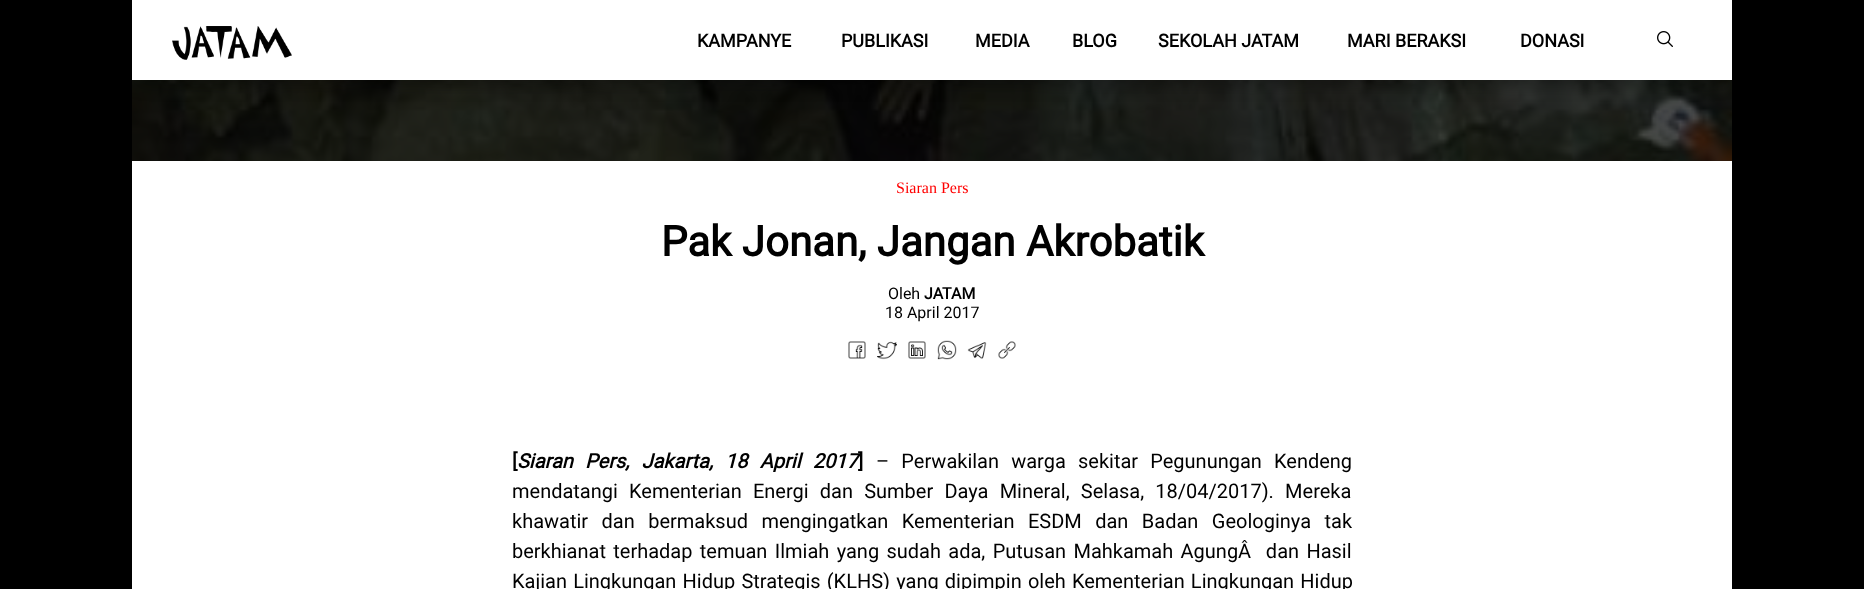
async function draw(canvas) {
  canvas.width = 1864
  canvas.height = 589
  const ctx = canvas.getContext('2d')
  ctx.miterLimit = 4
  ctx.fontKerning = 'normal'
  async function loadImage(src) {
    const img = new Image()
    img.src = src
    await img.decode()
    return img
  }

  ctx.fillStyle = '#000'
  ctx.fillRect(0, 0, 1864, 589)
  ctx.drawImage(await loadImage('image2.png'), 132, 80, 1600, 81)
  ctx.fillStyle = '#0000004d'
  ctx.filter = 'blur(7.5px)'
  ctx.beginPath()
  ctx.rect(137, 15, 1590, 70)
  ctx.fill()
  ctx.filter = 'none'
  ctx.fillStyle = '#fff'
  ctx.fillRect(132, 0, 1600, 80)
  ctx.drawImage(await loadImage('image0.png'), 172, 26, 120, 34)
  ctx.font = 'bold 18px Roboto'
  ctx.fillStyle = '#000'
  ctx.fillText('KAMPANYE', 697, 47)
  ctx.fillText('PUBLIKASI', 841, 47)
  ctx.fillText('MEDIA', 975, 47)
  ctx.fillText('BLOG', 1072, 47)
  ctx.fillText('SEKOLAH JATAM', 1158, 47)
  ctx.fillText('MARI BERAKSI', 1347, 47)
  ctx.fillText('DONASI', 1520, 47)
  ctx.drawImage(await loadImage('image1.png'), 1657, 31, 16, 16)
  ctx.fillStyle = '#fff'
  ctx.fillRect(132, 161, 1600, 428)
  ctx.font = '16px Liberation Serif'
  ctx.fillStyle = '#f00'
  ctx.fillText('Siaran Pers', 896, 193)
  ctx.font = 'bold 42px Roboto'
  ctx.fillStyle = '#000'
  ctx.fillText('Pak Jonan, Jangan Akrobatik', 661, 256)
  ctx.font = '16px Roboto'
  ctx.fillText('Oleh', 888, 299)
  ctx.font = 'bold 16px Roboto'
  ctx.fillText('JATAM', 924, 299)
  ctx.font = '16px Roboto'
  ctx.fillText('18 April 2017', 885, 318)
  ctx.drawImage(await loadImage('image3.png'), 848, 341, 18, 18)
  ctx.drawImage(await loadImage('image4.png'), 877, 341, 20, 19)
  ctx.drawImage(await loadImage('image5.png'), 908, 341, 18, 18)
  ctx.drawImage(await loadImage('image6.png'), 937, 340, 20, 20)
  ctx.drawImage(await loadImage('image7.png'), 967, 342, 20, 17)
  ctx.drawImage(await loadImage('image8.png'), 998, 341, 18, 18)
  ctx.font = 'bold 20px Roboto'
  ctx.fillText('[', 512, 468)
  ctx.wordSpacing = '7.25px'
  ctx.font = 'italic bold 20px Roboto'
  ctx.fillText('Siaran Pers, Jakarta, 18 April 2017', 517, 468)
  ctx.wordSpacing = '0px'
  ctx.font = 'bold 20px Roboto'
  ctx.fillText(']', 858, 468)
  ctx.wordSpacing = '7.25px'
  ctx.font = '20px Roboto'
  ctx.fillText('– Perwakilan warga sekitar Pegunungan Kendeng', 876, 468)
  ctx.wordSpacing = '6.25px'
  ctx.fillText('mendatangi Kementerian Energi dan Sumber Daya Mineral, Selasa, 18/04/2017). Mereka', 512, 498)
  ctx.wordSpacing = '8.5px'
  ctx.fillText('khawatir dan bermaksud mengingatkan Kementerian ESDM dan Badan Geologinya tak', 512, 528)
  ctx.wordSpacing = '2.4px'
  ctx.fillText('berkhianat terhadap temuan Ilmiah yang sudah ada, Putusan Mahkamah AgungÂ  dan Hasil', 512, 558)
  ctx.wordSpacing = '1.25px'
  ctx.fillText('Kajian Lingkungan Hidup Strategis (KLHS) yang dipimpin oleh Kementerian Lingkungan Hidup', 512, 588)
}

draw(document.querySelector('canvas'))
